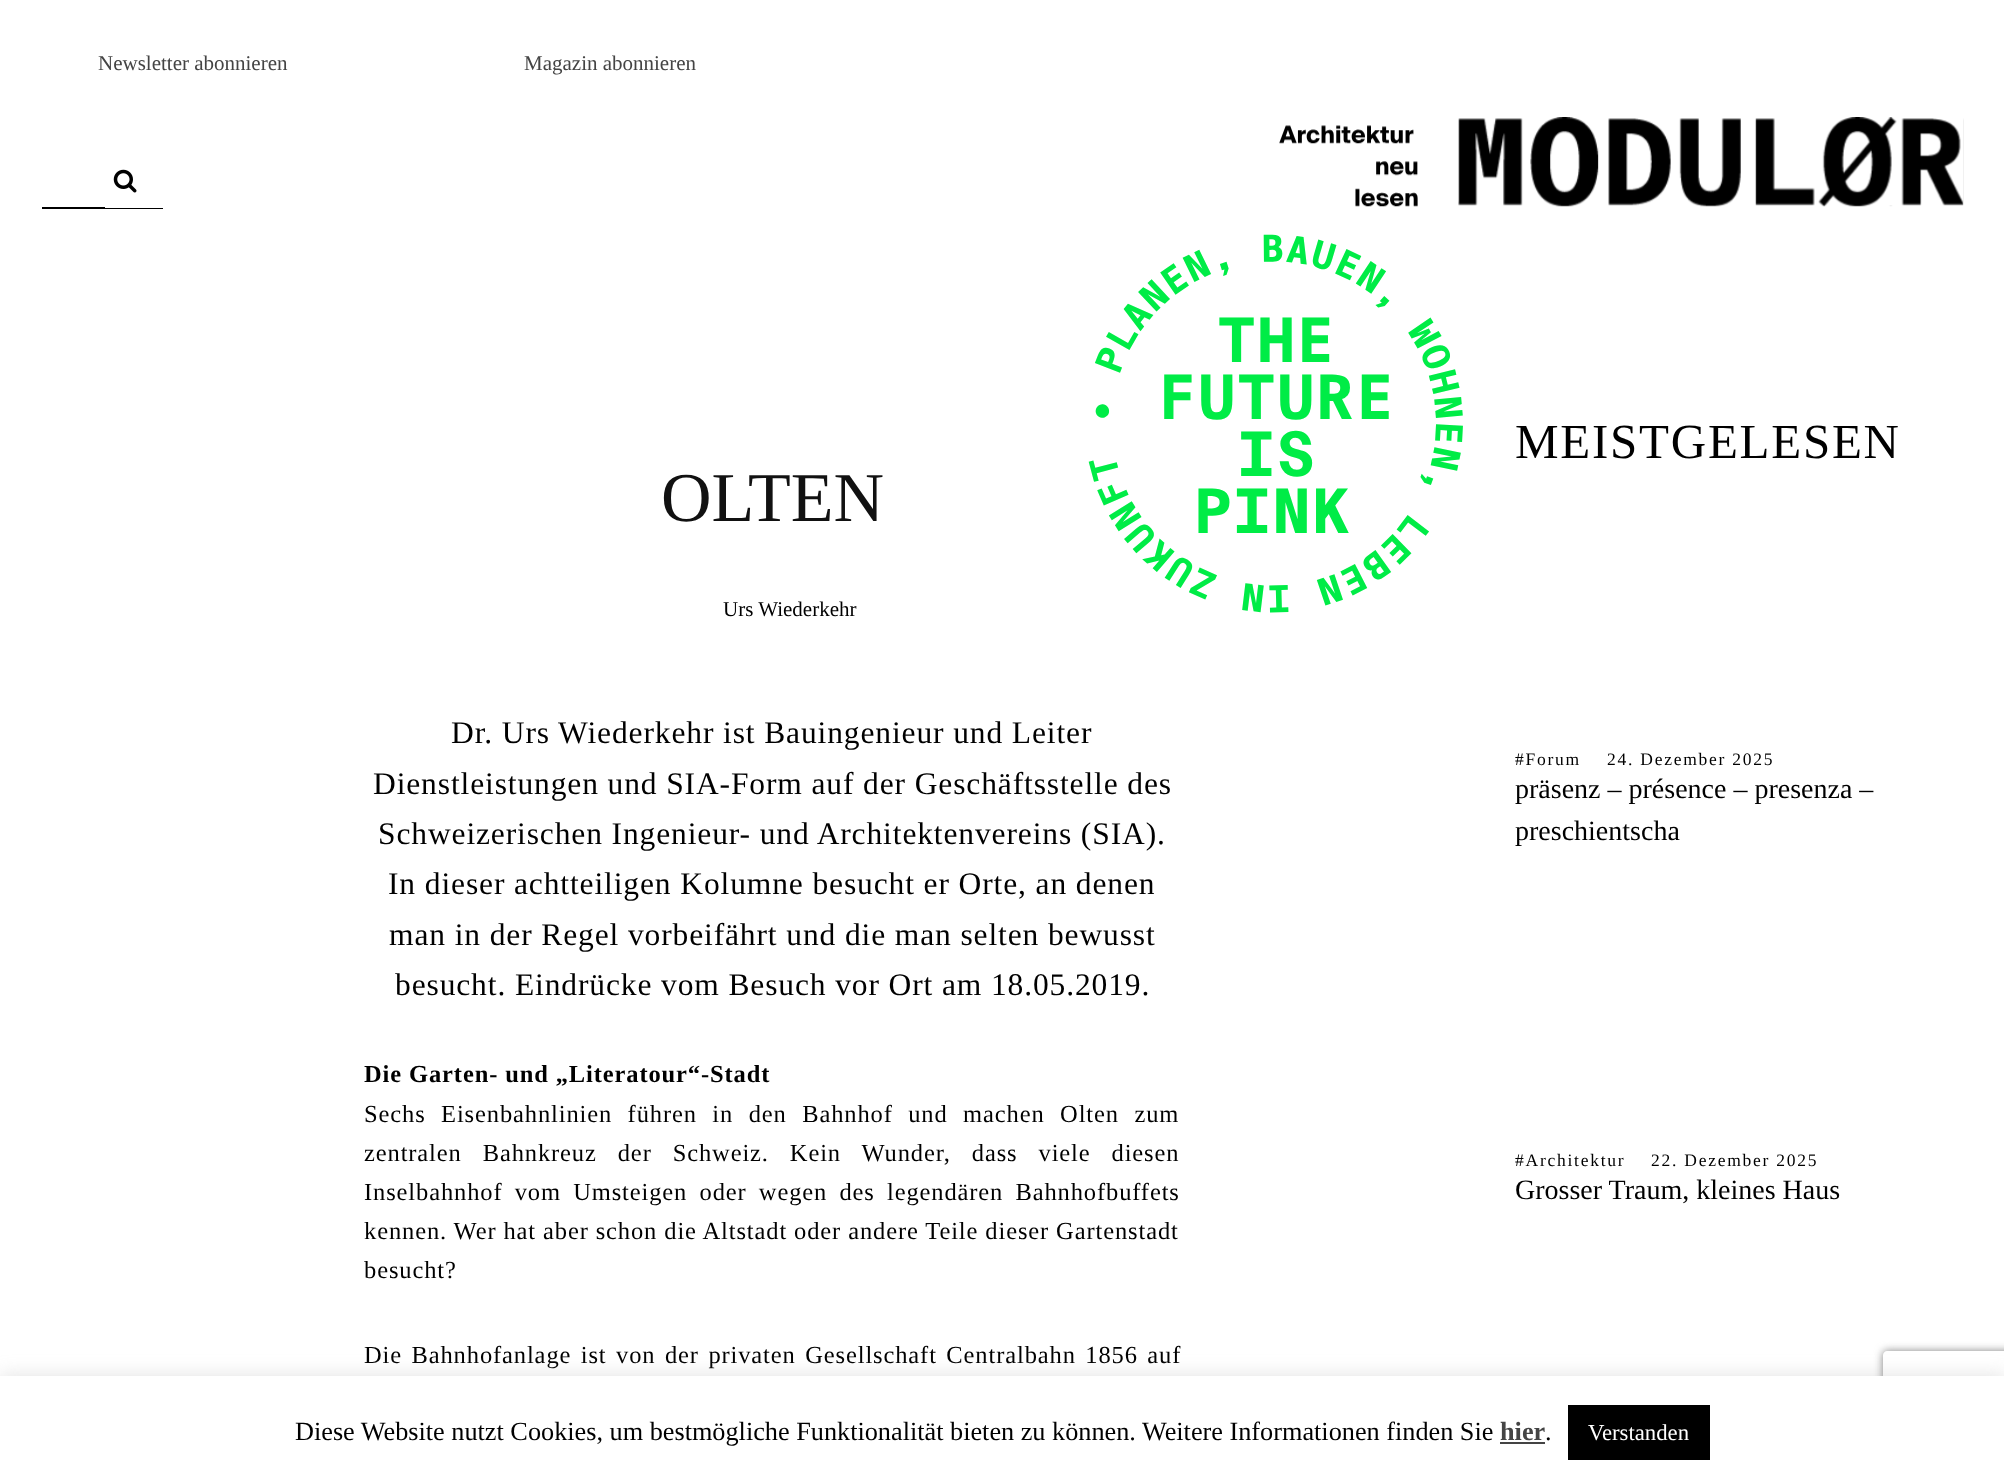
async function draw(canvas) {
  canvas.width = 2004
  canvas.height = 1480
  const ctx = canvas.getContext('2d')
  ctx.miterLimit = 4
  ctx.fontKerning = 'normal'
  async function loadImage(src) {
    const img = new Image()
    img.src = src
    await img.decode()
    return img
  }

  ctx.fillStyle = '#fff'
  ctx.fillRect(0, 0, 2004, 1480)
  ctx.font = '21px Liberation Serif'
  ctx.fillStyle = '#444'
  ctx.fillText('Newsletter abonnieren', 98, 70)
  ctx.fillText('Magazin abonnieren', 524, 70)
  ctx.fillStyle = '#000'
  ctx.fillRect(42, 207, 121, 2)
  ctx.fillStyle = '#fff'
  ctx.fillRect(105, 207, 58, 1)
  ctx.drawImage(await loadImage('image0.png'), 113, 169, 24, 24)
  ctx.drawImage(await loadImage('image1.png'), 1279, 117, 685, 90)
  ctx.drawImage(await loadImage('image2.png'), 1088, 234, 375, 379)
  ctx.font = '70px Liberation Serif'
  ctx.fillStyle = '#111'
  ctx.fillText('OLTEN', 661, 521)
  ctx.font = '21px Liberation Serif'
  ctx.fillStyle = '#000'
  ctx.fillText('Urs Wiederkehr', 723, 616)
  ctx.letterSpacing = '0.88px'
  ctx.font = '31.5px Liberation Serif'
  ctx.fillText('Dr. Urs Wiederkehr ist Bauingenieur und Leiter', 451, 743)
  ctx.fillText('Dienstleistungen und SIA-Form auf der Geschäftsstelle des', 373, 794)
  ctx.fillText('Schweizerischen Ingenieur- und Architektenvereins (SIA).', 378, 844)
  ctx.fillText('In dieser achtteiligen Kolumne besucht er Orte, an denen', 388, 894)
  ctx.fillText('man in der Regel vorbeifährt und die man selten bewusst', 389, 945)
  ctx.fillText('besucht. Eindrücke vom Besuch vor Ort am 18.05.2019.', 395, 995)
  ctx.font = 'bold 24.5px Liberation Serif'
  ctx.fillText('Die Garten- und „Literatour“-Stadt', 364, 1082)
  ctx.wordSpacing = '8.5px'
  ctx.font = '24.5px Liberation Serif'
  ctx.fillText('Sechs Eisenbahnlinien führen in den Bahnhof und machen Olten zum', 364, 1122)
  ctx.wordSpacing = '14px'
  ctx.fillText('zentralen Bahnkreuz der Schweiz. Kein Wunder, dass viele diesen', 364, 1161)
  ctx.wordSpacing = '5.25px'
  ctx.fillText('Inselbahnhof vom Umsteigen oder wegen des legendären Bahnhofbuffets', 364, 1200)
  ctx.wordSpacing = '0px'
  ctx.fillText('kennen. Wer hat aber schon die Altstadt oder andere Teile dieser Gartenstadt', 364, 1239)
  ctx.fillText('besucht?', 364, 1278)
  ctx.wordSpacing = '2.5px'
  ctx.fillText('Die Bahnhofanlage ist von der privaten Gesellschaft Centralbahn 1856 auf', 364, 1363)
  ctx.letterSpacing = '1.75px'
  ctx.wordSpacing = '0px'
  ctx.font = '49px Liberation Serif'
  ctx.fillText('MEISTGELESEN', 1515, 458)
  ctx.font = '17.5px Liberation Serif'
  ctx.fillText('#Forum', 1515, 765)
  ctx.fillText('24. Dezember 2025', 1607, 765)
  ctx.letterSpacing = '0px'
  ctx.font = '28px Liberation Serif'
  ctx.fillText('präsenz – présence – presenza –', 1515, 798)
  ctx.fillText('preschientscha', 1515, 840)
  ctx.letterSpacing = '1.75px'
  ctx.font = '17.5px Liberation Serif'
  ctx.fillText('#Architektur', 1515, 1166)
  ctx.fillText('22. Dezember 2025', 1651, 1166)
  ctx.letterSpacing = '0px'
  ctx.font = '28px Liberation Serif'
  ctx.fillText('Grosser Traum, kleines Haus', 1515, 1199)
  ctx.fillStyle = '#acabab4d'
  ctx.filter = 'blur(9px)'
  ctx.beginPath()
  ctx.rect(0, 1374, 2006, 105)
  ctx.fill()
  ctx.filter = 'none'
  ctx.save()
  ctx.beginPath()
  ctx.moveTo(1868, 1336)
  ctx.lineTo(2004, 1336)
  ctx.lineTo(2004, 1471)
  ctx.lineTo(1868, 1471)
  ctx.closePath()
  ctx.moveTo(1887, 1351)
  ctx.lineTo(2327, 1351)
  ctx.bezierCurveTo(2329, 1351, 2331, 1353, 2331, 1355)
  ctx.lineTo(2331, 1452)
  ctx.bezierCurveTo(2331, 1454, 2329, 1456, 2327, 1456)
  ctx.lineTo(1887, 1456)
  ctx.bezierCurveTo(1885, 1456, 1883, 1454, 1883, 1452)
  ctx.lineTo(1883, 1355)
  ctx.bezierCurveTo(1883, 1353, 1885, 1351, 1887, 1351)
  ctx.closePath()
  ctx.clip('evenodd')
  ctx.fillStyle = '#808080'
  ctx.filter = 'blur(4.5px)'
  ctx.beginPath()
  ctx.roundRect(1883, 1351, 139, 105, 4)
  ctx.fill()
  ctx.filter = 'none'
  ctx.restore()
  ctx.fillStyle = '#fff'
  ctx.fillRect(0, 1376, 2004, 104)
  ctx.font = '26.25px Liberation Serif'
  ctx.fillStyle = '#000'
  ctx.fillText('Diese Website nutzt Cookies, um bestmögliche Funktionalität bieten zu können. Weitere Informationen finden Sie', 295, 1440)
  ctx.font = 'bold 26.25px Liberation Serif'
  ctx.fillStyle = '#444'
  ctx.fillText('hier', 1500, 1440)
  ctx.fillRect(1500, 1442, 45, 2)
  ctx.font = '26.25px Liberation Serif'
  ctx.fillStyle = '#000'
  ctx.fillText('.', 1545, 1440)
  ctx.fillRect(1568, 1405, 142, 55)
  ctx.font = '22.75px Liberation Serif'
  ctx.fillStyle = '#fff'
  ctx.fillText('Verstanden', 1588, 1440)
}

draw(document.querySelector('canvas'))
